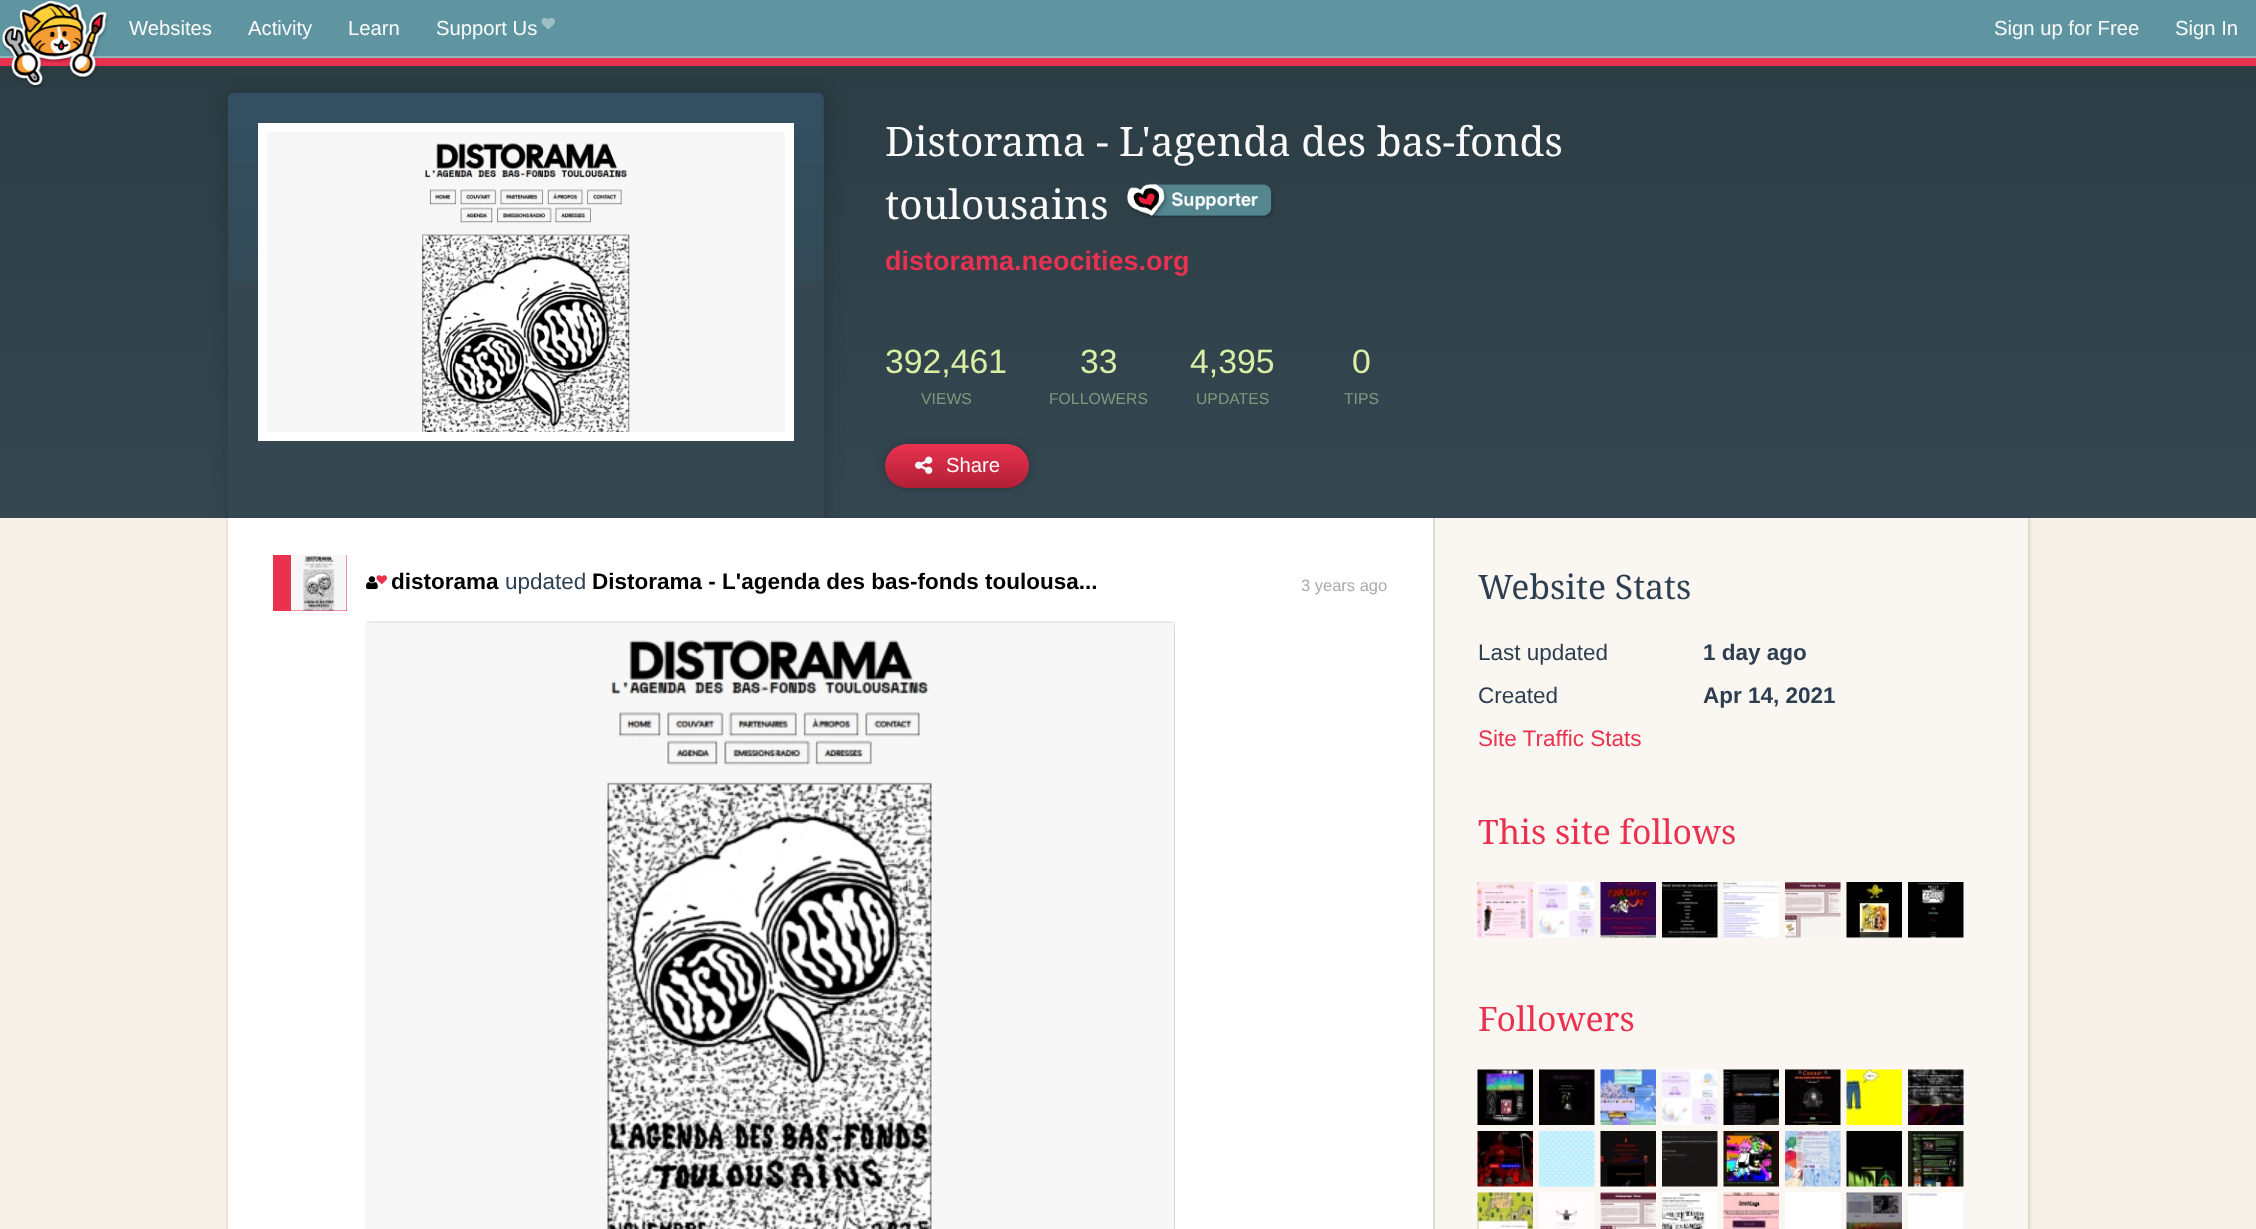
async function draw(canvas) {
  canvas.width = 2256
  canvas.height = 1229
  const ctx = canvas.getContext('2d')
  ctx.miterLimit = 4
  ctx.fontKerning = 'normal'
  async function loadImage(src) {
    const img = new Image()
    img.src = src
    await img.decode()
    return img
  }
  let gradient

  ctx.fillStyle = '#f6f0e6'
  ctx.fillRect(0, 0, 2256, 1229)
  gradient = ctx.createLinearGradient(1128, 33, 1128, 518)
  gradient.addColorStop(0, '#2b3c43')
  gradient.addColorStop(1, '#354751')
  ctx.fillStyle = gradient
  ctx.fillRect(0, 66, 2256, 452)
  ctx.save()
  ctx.beginPath()
  ctx.rect(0, 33, 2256, 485)
  ctx.clip()
  ctx.fillStyle = '#00000026'
  ctx.filter = 'blur(9px)'
  ctx.beginPath()
  ctx.roundRect(227, 93, 601, 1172, 9)
  ctx.fill()
  ctx.filter = 'none'
  ctx.restore()
  ctx.fillStyle = '#e93250'
  ctx.fillRect(0, 58, 2256, 8)
  ctx.fillStyle = '#5e95a1'
  ctx.fillRect(0, 0, 2256, 56)
  ctx.fillStyle = '#92b4bd'
  ctx.fillRect(0, 56, 2256, 2)
  ctx.drawImage(await loadImage('image0.png'), 1, 0, 108, 88)
  ctx.font = '20.25px Liberation Sans'
  ctx.fillStyle = '#fafafa'
  ctx.fillText('Websites', 129, 35)
  ctx.fillText('Activity', 248, 35)
  ctx.fillText('Learn', 348, 35)
  ctx.fillText('Support Us', 436, 35)
  ctx.drawImage(await loadImage('image1.png'), 541, 18, 14, 12)
  ctx.fillText('Sign up for Free', 1994, 35)
  ctx.fillText('Sign In', 2175, 35)
  ctx.fillStyle = '#354751'
  ctx.beginPath()
  ctx.roundRect(228, 93, 596, 425, [6, 6, 0, 0])
  ctx.fill()
  ctx.drawImage(await loadImage('image2.png'), 228, 93, 596, 189)
  ctx.drawImage(await loadImage('image3.png'), 267, 132, 518, 300)
  ctx.strokeStyle = '#fff'
  ctx.lineWidth = 9
  ctx.strokeRect(262.5, 127.5, 527, 309)
  ctx.font = '40.5px Droid Serif'
  ctx.fillStyle = '#fafafa'
  ctx.fillText('Distorama - L\'agenda des bas-fonds', 885, 156)
  ctx.fillText('toulousains', 885, 219)
  ctx.drawImage(await loadImage('image4.png'), 1127, 183, 147, 35)
  ctx.font = 'bold 27px Liberation Sans'
  ctx.fillStyle = '#e93250'
  ctx.fillText('distorama.neocities.org', 885, 270)
  ctx.font = '33.75px Liberation Sans'
  ctx.fillStyle = '#daeea5'
  ctx.fillText('392,461', 885, 373)
  ctx.font = '15.75px Liberation Sans'
  ctx.fillStyle = '#84997e'
  ctx.fillText('VIEWS', 921, 404)
  ctx.font = '33.75px Liberation Sans'
  ctx.fillStyle = '#daeea5'
  ctx.fillText('33', 1080, 373)
  ctx.font = '15.75px Liberation Sans'
  ctx.fillStyle = '#84997e'
  ctx.fillText('FOLLOWERS', 1049, 404)
  ctx.font = '33.75px Liberation Sans'
  ctx.fillStyle = '#daeea5'
  ctx.fillText('4,395', 1190, 373)
  ctx.font = '15.75px Liberation Sans'
  ctx.fillStyle = '#84997e'
  ctx.fillText('UPDATES', 1196, 404)
  ctx.font = '33.75px Liberation Sans'
  ctx.fillStyle = '#daeea5'
  ctx.fillText('0', 1352, 373)
  ctx.font = '15.75px Liberation Sans'
  ctx.fillStyle = '#84997e'
  ctx.fillText('TIPS', 1344, 404)
  ctx.fillStyle = '#00000040'
  ctx.filter = 'blur(4.5px)'
  ctx.beginPath()
  ctx.roundRect(885, 444, 144, 44, 22)
  ctx.fill()
  ctx.filter = 'none'
  gradient = ctx.createLinearGradient(957, 444, 957, 488)
  gradient.addColorStop(0, '#e93250')
  gradient.addColorStop(1, '#b11f36')
  ctx.fillStyle = gradient
  ctx.beginPath()
  ctx.roundRect(885, 444, 144, 44, 22)
  ctx.fill()
  ctx.drawImage(await loadImage('image5.png'), 915, 456, 18, 18)
  ctx.font = '20.25px Liberation Sans'
  ctx.fillStyle = '#fafafa'
  ctx.fillText('Share', 946, 472)
  ctx.fillStyle = '#0000001a'
  ctx.filter = 'blur(1px)'
  ctx.beginPath()
  ctx.rect(227, 518, 1803, 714)
  ctx.fill()
  ctx.filter = 'none'
  ctx.fillStyle = '#faf6f1'
  ctx.fillRect(1435, 518, 593, 711)
  ctx.fillStyle = '#ddd'
  ctx.fillRect(1433, 518, 2, 711)
  ctx.fillStyle = '#fff'
  ctx.fillRect(228, 518, 1205, 711)
  ctx.fillStyle = '#e93250'
  ctx.fillRect(273, 555, 74, 56)
  ctx.drawImage(await loadImage('image6.png'), 291, 555, 56, 56)
  ctx.drawImage(await loadImage('image7.png'), 366, 576, 12, 14)
  ctx.drawImage(await loadImage('image8.png'), 376, 575, 11, 10)
  ctx.font = 'bold 22.5px Liberation Sans'
  ctx.fillStyle = '#000'
  ctx.fillText('distorama', 391, 589)
  ctx.font = '22.5px Liberation Sans'
  ctx.fillStyle = '#2c3e50'
  ctx.fillText('updated', 505, 589)
  ctx.font = 'bold 22.5px Liberation Sans'
  ctx.fillStyle = '#000'
  ctx.fillText('Distorama - L\'agenda des bas-fonds toulousa...', 592, 589)
  ctx.font = '16.5px Liberation Sans'
  ctx.fillStyle = '#aaa'
  ctx.fillText('3 years ago', 1301, 591)
  ctx.save()
  ctx.beginPath()
  ctx.rect(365, 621, 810, 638)
  ctx.clip()
  ctx.fillStyle = '#0000004d'
  ctx.filter = 'blur(3px)'
  ctx.beginPath()
  ctx.rect(365, 624, 810, 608)
  ctx.fill()
  ctx.filter = 'none'
  ctx.restore()
  ctx.drawImage(await loadImage('image9.png'), 365, 623, 809, 606)
  ctx.font = '33.75px Droid Serif'
  ctx.fillStyle = '#2c3e50'
  ctx.fillText('Website Stats', 1478, 599)
  ctx.font = '22.5px Liberation Sans'
  ctx.fillText('Last updated', 1478, 660)
  ctx.font = 'bold 22.5px Liberation Sans'
  ctx.fillText('1 day ago', 1703, 660)
  ctx.font = '22.5px Liberation Sans'
  ctx.fillText('Created', 1478, 703)
  ctx.font = 'bold 22.5px Liberation Sans'
  ctx.fillText('Apr 14, 2021', 1703, 703)
  ctx.font = '22.5px Liberation Sans'
  ctx.fillStyle = '#e93250'
  ctx.fillText('Site Traffic Stats', 1478, 746)
  ctx.font = '33.75px Droid Serif'
  ctx.fillText('This site follows', 1478, 844)
  ctx.drawImage(await loadImage('image10.png'), 1477, 882, 56, 56)
  ctx.drawImage(await loadImage('image11.png'), 1539, 882, 56, 56)
  ctx.drawImage(await loadImage('image12.png'), 1600, 882, 56, 56)
  ctx.drawImage(await loadImage('image13.png'), 1662, 882, 56, 56)
  ctx.drawImage(await loadImage('image14.png'), 1723, 882, 56, 56)
  ctx.drawImage(await loadImage('image15.png'), 1785, 882, 56, 56)
  ctx.drawImage(await loadImage('image16.png'), 1846, 882, 56, 56)
  ctx.drawImage(await loadImage('image17.png'), 1908, 882, 56, 56)
  ctx.fillText('Followers', 1478, 1031)
  ctx.drawImage(await loadImage('image18.png'), 1477, 1069, 56, 56)
  ctx.drawImage(await loadImage('image19.png'), 1539, 1069, 56, 56)
  ctx.drawImage(await loadImage('image20.png'), 1600, 1069, 56, 56)
  ctx.drawImage(await loadImage('image21.png'), 1662, 1069, 56, 56)
  ctx.drawImage(await loadImage('image22.png'), 1723, 1069, 56, 56)
  ctx.drawImage(await loadImage('image23.png'), 1785, 1069, 56, 56)
  ctx.drawImage(await loadImage('image24.png'), 1846, 1069, 56, 56)
  ctx.drawImage(await loadImage('image25.png'), 1908, 1069, 56, 56)
  ctx.drawImage(await loadImage('image26.png'), 1477, 1131, 56, 56)
  ctx.drawImage(await loadImage('image27.png'), 1539, 1131, 56, 56)
  ctx.drawImage(await loadImage('image28.png'), 1600, 1131, 56, 56)
  ctx.drawImage(await loadImage('image29.png'), 1662, 1131, 56, 56)
  ctx.drawImage(await loadImage('image30.png'), 1723, 1131, 56, 56)
  ctx.drawImage(await loadImage('image31.png'), 1785, 1131, 56, 56)
  ctx.drawImage(await loadImage('image32.png'), 1846, 1131, 56, 56)
  ctx.drawImage(await loadImage('image33.png'), 1908, 1131, 56, 56)
  ctx.drawImage(await loadImage('image34.png'), 1477, 1192, 56, 37)
  ctx.drawImage(await loadImage('image35.png'), 1539, 1192, 56, 37)
  ctx.drawImage(await loadImage('image36.png'), 1600, 1192, 56, 37)
  ctx.drawImage(await loadImage('image37.png'), 1662, 1192, 56, 37)
  ctx.drawImage(await loadImage('image38.png'), 1723, 1192, 56, 37)
  ctx.fillStyle = '#fff'
  ctx.fillRect(1785, 1192, 56, 37)
  ctx.drawImage(await loadImage('image39.png'), 1846, 1192, 56, 37)
  ctx.drawImage(await loadImage('image40.png'), 1908, 1192, 56, 37)
}

draw(document.querySelector('canvas'))
